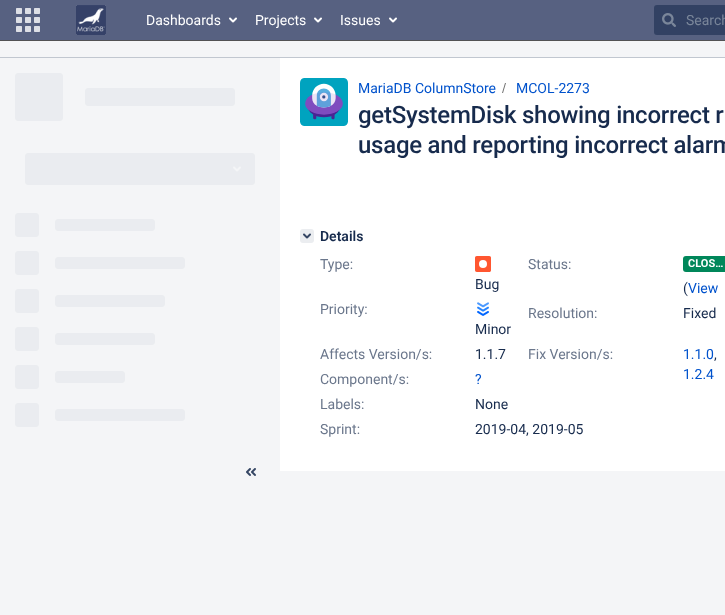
async function draw(canvas) {
  canvas.width = 725
  canvas.height = 615
  const ctx = canvas.getContext('2d')
  ctx.miterLimit = 4
  ctx.fontKerning = 'normal'
  async function loadImage(src) {
    const img = new Image()
    img.src = src
    await img.decode()
    return img
  }

  ctx.fillStyle = '#f4f5f7'
  ctx.fillRect(0, 0, 725, 615)
  ctx.fillStyle = '#576181'
  ctx.fillRect(0, 0, 725, 40)
  ctx.fillStyle = '#525254'
  ctx.fillRect(0, 40, 725, 1)
  ctx.drawImage(await loadImage('image0.png'), 16, 8, 24, 24)
  ctx.drawImage(await loadImage('image1.png'), 76, 5, 30, 30)
  ctx.font = '14px Roboto'
  ctx.fillStyle = '#fff'
  ctx.fillText('Dashboards', 146, 25)
  ctx.drawImage(await loadImage('image2.png'), 229, 17, 8, 6)
  ctx.fillText('Projects', 255, 25)
  ctx.drawImage(await loadImage('image2.png'), 314, 17, 8, 6)
  ctx.fillText('Issues', 340, 25)
  ctx.drawImage(await loadImage('image2.png'), 389, 17, 8, 6)
  ctx.fillStyle = '#324163'
  ctx.beginPath()
  ctx.roundRect(654, 5, 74, 30, 3)
  ctx.fill()
  ctx.drawImage(await loadImage('image3.png'), 662, 13, 14, 14)
  ctx.fillStyle = '#7a869a'
  ctx.fillText('Search', 686, 25)
  ctx.fillStyle = '#c1c7d0'
  ctx.fillRect(0, 57, 725, 1)
  ctx.drawImage(await loadImage('image4.png'), 15, 73, 240, 354)
  ctx.drawImage(await loadImage('image5.png'), 246, 468, 10, 8)
  ctx.fillStyle = '#fff'
  ctx.fillRect(280, 58, 445, 413)
  ctx.drawImage(await loadImage('image6.png'), 300, 78, 48, 48)
  ctx.fillStyle = '#0052cc'
  ctx.fillText('MariaDB ColumnStore', 358, 93)
  ctx.fillStyle = '#707070'
  ctx.beginPath()
  ctx.moveTo(503, 93)
  ctx.lineTo(506, 83)
  ctx.lineTo(505, 83)
  ctx.lineTo(502, 93)
  ctx.closePath()
  ctx.fill()
  ctx.fillStyle = '#0052cc'
  ctx.fillText('MCOL-2273', 516, 93)
  ctx.letterSpacing = '-0.25px'
  ctx.font = '500 24px Roboto'
  ctx.fillStyle = '#172b4d'
  ctx.fillText('getSystemDisk showing incorrect r', 358, 123)
  ctx.fillText('usage and reporting incorrect alarm', 358, 153)
  ctx.fillStyle = '#ebedf0'
  ctx.beginPath()
  ctx.roundRect(300, 229, 14, 14, 3)
  ctx.fill()
  ctx.drawImage(await loadImage('image7.png'), 303, 233, 8, 6)
  ctx.letterSpacing = '0px'
  ctx.font = '600 14px Roboto'
  ctx.fillStyle = '#172b4d'
  ctx.fillText('Details', 320, 241)
  ctx.font = '14px Roboto'
  ctx.fillStyle = '#6b778c'
  ctx.fillText('Type:', 320, 269)
  ctx.drawImage(await loadImage('image8.png'), 475, 256, 16, 16)
  ctx.fillStyle = '#172b4d'
  ctx.fillText('Bug', 475, 289)
  ctx.fillStyle = '#6b778c'
  ctx.fillText('Status:', 528, 269)
  ctx.fillStyle = '#00875a'
  ctx.beginPath()
  ctx.roundRect(683, 256, 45, 16, 3)
  ctx.fill()
  ctx.font = 'bold 11px Roboto'
  ctx.fillStyle = '#fff'
  ctx.fillText('CLOS…', 688, 267)
  ctx.font = '14px Roboto'
  ctx.fillStyle = '#172b4d'
  ctx.fillText('(', 683, 293)
  ctx.fillStyle = '#0052cc'
  ctx.fillText('View', 688, 293)
  ctx.fillStyle = '#6b778c'
  ctx.fillText('Priority:', 320, 314)
  ctx.drawImage(await loadImage('image9.png'), 477, 302, 12, 14)
  ctx.fillStyle = '#172b4d'
  ctx.fillText('Minor', 475, 334)
  ctx.fillStyle = '#6b778c'
  ctx.fillText('Resolution:', 528, 318)
  ctx.fillStyle = '#172b4d'
  ctx.fillText('Fixed', 683, 318)
  ctx.fillStyle = '#6b778c'
  ctx.fillText('Affects Version/s:', 320, 359)
  ctx.fillStyle = '#172b4d'
  ctx.fillText('1.1.7', 475, 359)
  ctx.fillStyle = '#6b778c'
  ctx.fillText('Fix Version/s:', 528, 359)
  ctx.fillStyle = '#0052cc'
  ctx.fillText('1.1.0', 683, 359)
  ctx.fillStyle = '#172b4d'
  ctx.fillText(',', 714, 359)
  ctx.fillStyle = '#0052cc'
  ctx.fillText('1.2.4', 683, 379)
  ctx.fillStyle = '#6b778c'
  ctx.fillText('Component/s:', 320, 384)
  ctx.fillStyle = '#0052cc'
  ctx.fillText('?', 475, 384)
  ctx.fillStyle = '#6b778c'
  ctx.fillText('Labels:', 320, 409)
  ctx.fillStyle = '#172b4d'
  ctx.fillText('None', 475, 409)
  ctx.fillStyle = '#6b778c'
  ctx.fillText('Sprint:', 320, 434)
  ctx.fillStyle = '#172b4d'
  ctx.fillText('2019-04, 2019-05', 475, 434)
}

draw(document.querySelector('canvas'))
